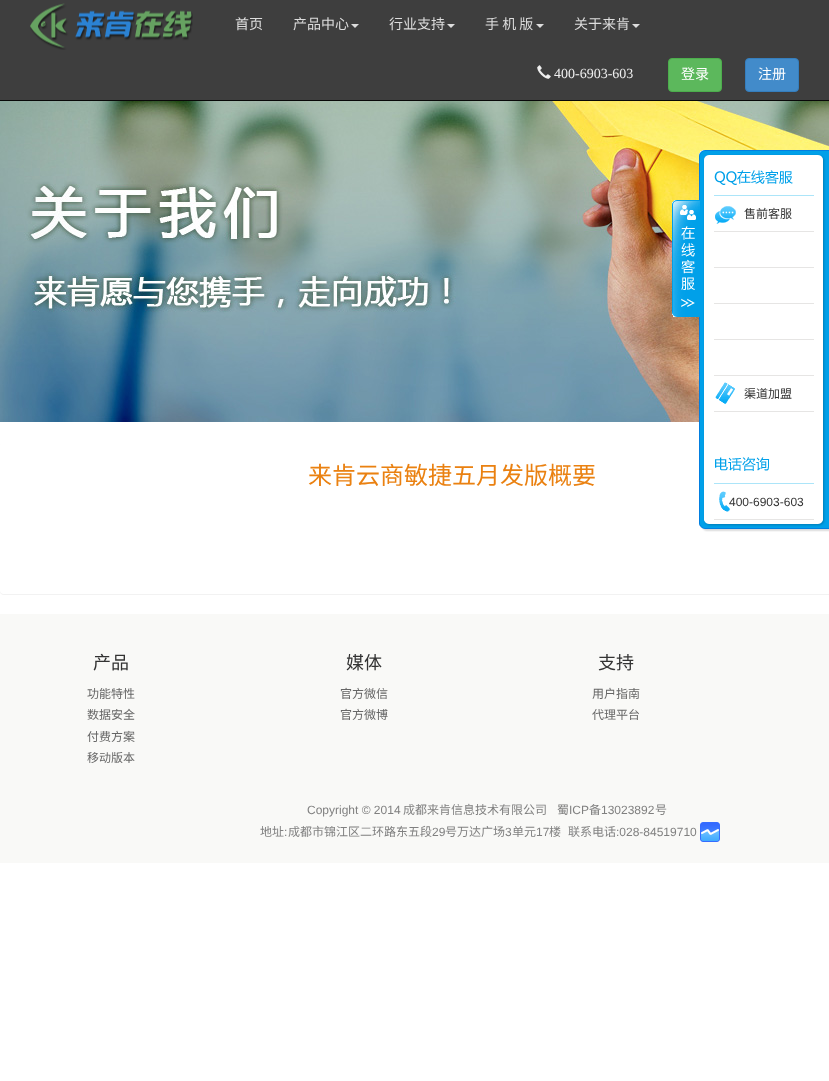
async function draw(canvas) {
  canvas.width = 829
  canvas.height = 1081
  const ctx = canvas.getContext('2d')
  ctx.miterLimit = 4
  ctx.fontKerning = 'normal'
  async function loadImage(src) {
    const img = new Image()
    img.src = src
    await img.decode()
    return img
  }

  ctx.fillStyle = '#fff'
  ctx.fillRect(0, 0, 829, 1081)
  ctx.fillStyle = '#3e3e3e'
  ctx.fillRect(0, 0, 829, 100)
  ctx.fillStyle = '#080808'
  ctx.fillRect(0, 100, 829, 1)
  ctx.drawImage(await loadImage('image0.png'), 30, 3, 163, 47)
  ctx.font = '14px Noto Sans CJK SC'
  ctx.fillStyle = '#ddd'
  ctx.fillText('首页', 235, 29)
  ctx.fillText('产品中心', 293, 29)
  ctx.beginPath()
  ctx.moveTo(351, 24)
  ctx.lineTo(359, 24)
  ctx.lineTo(355, 28)
  ctx.closePath()
  ctx.fill()
  ctx.fillText('行业支持', 389, 29)
  ctx.beginPath()
  ctx.moveTo(447, 24)
  ctx.lineTo(455, 24)
  ctx.lineTo(451, 28)
  ctx.closePath()
  ctx.fill()
  ctx.fillText('手 机 版', 485, 29)
  ctx.beginPath()
  ctx.moveTo(536, 24)
  ctx.lineTo(544, 24)
  ctx.lineTo(540, 28)
  ctx.closePath()
  ctx.fill()
  ctx.fillText('关于来肯', 574, 29)
  ctx.beginPath()
  ctx.moveTo(632, 24)
  ctx.lineTo(640, 24)
  ctx.lineTo(636, 28)
  ctx.closePath()
  ctx.fill()
  ctx.drawImage(await loadImage('image1.png'), 537, 65, 14, 14)
  ctx.font = '14px Liberation Serif'
  ctx.fillStyle = '#eee'
  ctx.fillText('400-6903-603', 554, 78)
  ctx.fillStyle = '#5cb85c'
  ctx.beginPath()
  ctx.roundRect(668.5, 58.5, 53, 33, 3.5)
  ctx.fill()
  ctx.strokeStyle = '#4cae4c'
  ctx.stroke()
  ctx.font = '14px Noto Sans CJK SC'
  ctx.fillStyle = '#fff'
  ctx.fillText('登录', 681, 79)
  ctx.fillStyle = '#428bca'
  ctx.beginPath()
  ctx.roundRect(745.5, 58.5, 53, 33, 3.5)
  ctx.fill()
  ctx.strokeStyle = '#357ebd'
  ctx.stroke()
  ctx.fillStyle = '#fff'
  ctx.fillText('注册', 758, 79)
  ctx.drawImage(await loadImage('image2.png'), 0, 101, 829, 321)
  ctx.fillStyle = '#0000000d'
  ctx.filter = 'blur(0.5px)'
  ctx.beginPath()
  ctx.roundRect(0, 443, 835, 152, 4)
  ctx.fill()
  ctx.filter = 'none'
  ctx.fillStyle = '#fff'
  ctx.beginPath()
  ctx.roundRect(0, 442, 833, 152, 4)
  ctx.fill()
  ctx.font = '24px Noto Sans CJK SC'
  ctx.fillStyle = '#ea8111'
  ctx.fillText('来肯云商敏捷五月发版概要', 308, 484)
  ctx.drawImage(await loadImage('image5.png'), 699, 165, 130, 283)
  ctx.drawImage(await loadImage('image3.png'), 672, 200, 28, 117)
  ctx.drawImage(await loadImage('image4.png'), 699, 150, 130, 15)
  ctx.drawImage(await loadImage('image6.png'), 714, 170, 79, 15)
  ctx.fillStyle = '#ace5f9'
  ctx.fillRect(714, 195, 100, 1)
  ctx.drawImage(await loadImage('image7.png'), 715, 206, 21, 18)
  ctx.fillStyle = '#e6e5e4'
  ctx.fillRect(714, 231, 100, 1)
  ctx.font = '12px Noto Sans CJK SC'
  ctx.fillStyle = '#333'
  ctx.fillText('售前客服', 744, 218)
  ctx.fillStyle = '#e6e5e4'
  ctx.fillRect(714, 267, 100, 1)
  ctx.fillRect(714, 303, 100, 1)
  ctx.fillRect(714, 339, 100, 1)
  ctx.fillRect(714, 375, 100, 1)
  ctx.drawImage(await loadImage('image8.png'), 715, 382, 20, 23)
  ctx.fillRect(714, 411, 100, 1)
  ctx.fillStyle = '#333'
  ctx.fillText('渠道加盟', 744, 398)
  ctx.drawImage(await loadImage('image9.png'), 699, 448, 130, 72)
  ctx.drawImage(await loadImage('image10.png'), 715, 457, 55, 14)
  ctx.fillStyle = '#ace5f9'
  ctx.fillRect(714, 483, 100, 1)
  ctx.drawImage(await loadImage('image11.png'), 719, 491, 12, 21)
  ctx.fillStyle = '#e6e5e4'
  ctx.fillRect(714, 519, 100, 1)
  ctx.font = '12px Liberation Sans'
  ctx.fillStyle = '#333'
  ctx.fillText('400-6903-603', 729, 506)
  ctx.drawImage(await loadImage('image12.png'), 699, 520, 130, 12)
  ctx.fillStyle = '#f9f9f7'
  ctx.fillRect(0, 614, 829, 249)
  ctx.font = '18px Noto Sans CJK SC'
  ctx.fillStyle = '#333'
  ctx.fillText('产品', 93, 669)
  ctx.font = '12px Noto Sans CJK SC'
  ctx.fillStyle = '#666'
  ctx.fillText('功能特性', 87, 698)
  ctx.fillText('数据安全', 87, 719)
  ctx.fillText('付费方案', 87, 741)
  ctx.fillText('移动版本', 87, 762)
  ctx.font = '18px Noto Sans CJK SC'
  ctx.fillStyle = '#333'
  ctx.fillText('媒体', 346, 669)
  ctx.font = '12px Noto Sans CJK SC'
  ctx.fillStyle = '#666'
  ctx.fillText('官方微信', 340, 698)
  ctx.fillText('官方微博', 340, 719)
  ctx.font = '18px Noto Sans CJK SC'
  ctx.fillStyle = '#333'
  ctx.fillText('支持', 598, 669)
  ctx.font = '12px Noto Sans CJK SC'
  ctx.fillStyle = '#666'
  ctx.fillText('用户指南', 592, 698)
  ctx.fillText('代理平台', 592, 719)
  ctx.font = '12px Liberation Sans'
  ctx.fillStyle = '#808080'
  ctx.fillText('Copyright © 2014', 307, 814)
  ctx.font = '12px Noto Sans CJK SC'
  ctx.fillText('成都来肯信息技术有限公司', 403, 814)
  ctx.fillText('蜀', 557, 814)
  ctx.font = '12px Liberation Sans'
  ctx.fillText('ICP', 569, 814)
  ctx.font = '12px Noto Sans CJK SC'
  ctx.fillText('备', 589, 814)
  ctx.font = '12px Liberation Sans'
  ctx.fillText('13023892', 601, 814)
  ctx.font = '12px Noto Sans CJK SC'
  ctx.fillText('号', 655, 814)
  ctx.fillText('地址', 260, 836)
  ctx.font = '12px Liberation Sans'
  ctx.fillText(':', 284, 836)
  ctx.font = '12px Noto Sans CJK SC'
  ctx.fillText('成都市锦江区二环路东五段', 288, 836)
  ctx.font = '12px Liberation Sans'
  ctx.fillText('29', 432, 836)
  ctx.font = '12px Noto Sans CJK SC'
  ctx.fillText('号万达广场', 445, 836)
  ctx.font = '12px Liberation Sans'
  ctx.fillText('3', 505, 836)
  ctx.font = '12px Noto Sans CJK SC'
  ctx.fillText('单元', 512, 836)
  ctx.font = '12px Liberation Sans'
  ctx.fillText('17', 536, 836)
  ctx.font = '12px Noto Sans CJK SC'
  ctx.fillText('楼', 549, 836)
  ctx.fillText('联系电话', 568, 836)
  ctx.font = '12px Liberation Sans'
  ctx.fillText(':028-84519710', 616, 836)
  ctx.drawImage(await loadImage('image13.png'), 700, 822, 20, 20)
}

draw(document.querySelector('canvas'))
